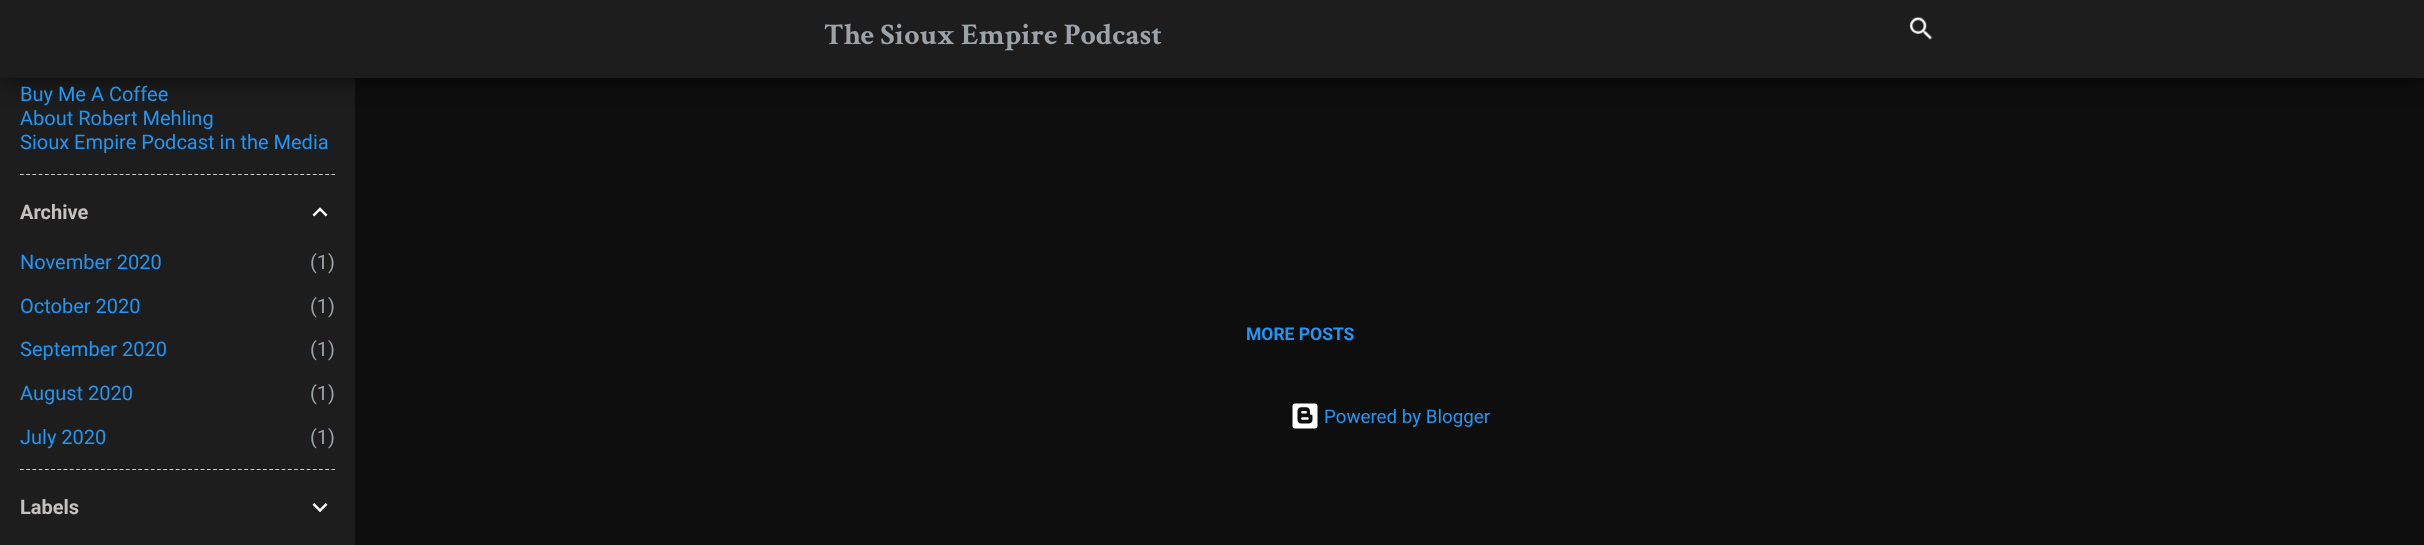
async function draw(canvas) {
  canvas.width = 2424
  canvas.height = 545
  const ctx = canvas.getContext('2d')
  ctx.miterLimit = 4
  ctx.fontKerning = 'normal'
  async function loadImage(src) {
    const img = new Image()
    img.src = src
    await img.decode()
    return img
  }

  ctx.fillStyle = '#0e0e0e'
  ctx.fillRect(0, 0, 2424, 545)
  ctx.fillStyle = '#1d1d1d'
  ctx.fillRect(0, 78, 355, 467)
  ctx.fillStyle = '#000000b3'
  ctx.filter = 'blur(12.5px)'
  ctx.beginPath()
  ctx.rect(0, 0, 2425, 78)
  ctx.fill()
  ctx.filter = 'none'
  ctx.fillStyle = '#1d1d1d'
  ctx.fillRect(0, 0, 2424, 78)
  ctx.font = 'bold 30px Crimson Text'
  ctx.fillStyle = '#9ba2a8'
  ctx.fillText('The Sioux Empire Podcast', 824, 44)
  ctx.drawImage(await loadImage('image0.png'), 1909, 16, 24, 24)
  ctx.font = '20px Roboto'
  ctx.fillStyle = '#2196f3'
  ctx.fillText('Buy Me A Coffee', 20, 101)
  ctx.fillText('About Robert Mehling', 20, 125)
  ctx.fillText('Sioux Empire Podcast in the Media', 20, 149)
  ctx.beginPath()
  ctx.moveTo(20, 174.5)
  ctx.lineTo(335, 174.5)
  ctx.strokeStyle = '#ccc'
  ctx.lineWidth = 1.2
  ctx.setLineDash([3.75, 2.48])
  ctx.stroke()
  ctx.font = 'bold 20px Roboto'
  ctx.fillStyle = '#c5c1c1'
  ctx.fillText('Archive', 20, 219)
  ctx.drawImage(await loadImage('image1.png'), 312, 207, 16, 10)
  ctx.font = '20px Roboto'
  ctx.fillStyle = '#2196f3'
  ctx.fillText('November 2020', 20, 269)
  ctx.fillStyle = '#9ba2a8'
  ctx.fillText('(1)', 310, 269)
  ctx.fillStyle = '#2196f3'
  ctx.fillText('October 2020', 20, 313)
  ctx.fillStyle = '#9ba2a8'
  ctx.fillText('(1)', 310, 313)
  ctx.fillStyle = '#2196f3'
  ctx.fillText('September 2020', 20, 356)
  ctx.fillStyle = '#9ba2a8'
  ctx.fillText('(1)', 310, 356)
  ctx.fillStyle = '#2196f3'
  ctx.fillText('August 2020', 20, 400)
  ctx.fillStyle = '#9ba2a8'
  ctx.fillText('(1)', 310, 400)
  ctx.fillStyle = '#2196f3'
  ctx.fillText('July 2020', 20, 444)
  ctx.fillStyle = '#9ba2a8'
  ctx.fillText('(1)', 310, 444)
  ctx.beginPath()
  ctx.moveTo(20, 469.5)
  ctx.lineTo(335, 469.5)
  ctx.stroke()
  ctx.font = 'bold 20px Roboto'
  ctx.fillStyle = '#c5c1c1'
  ctx.fillText('Labels', 20, 514)
  ctx.drawImage(await loadImage('image2.png'), 312, 503, 16, 10)
  ctx.font = 'bold 17.5px Roboto'
  ctx.fillStyle = '#2196f3'
  ctx.fillText('MORE POSTS', 1246, 340)
  ctx.drawImage(await loadImage('image3.png'), 1292, 403, 26, 26)
  ctx.font = '18.75px Roboto'
  ctx.fillText('Powered by Blogger', 1324, 423)
}

draw(document.querySelector('canvas'))
